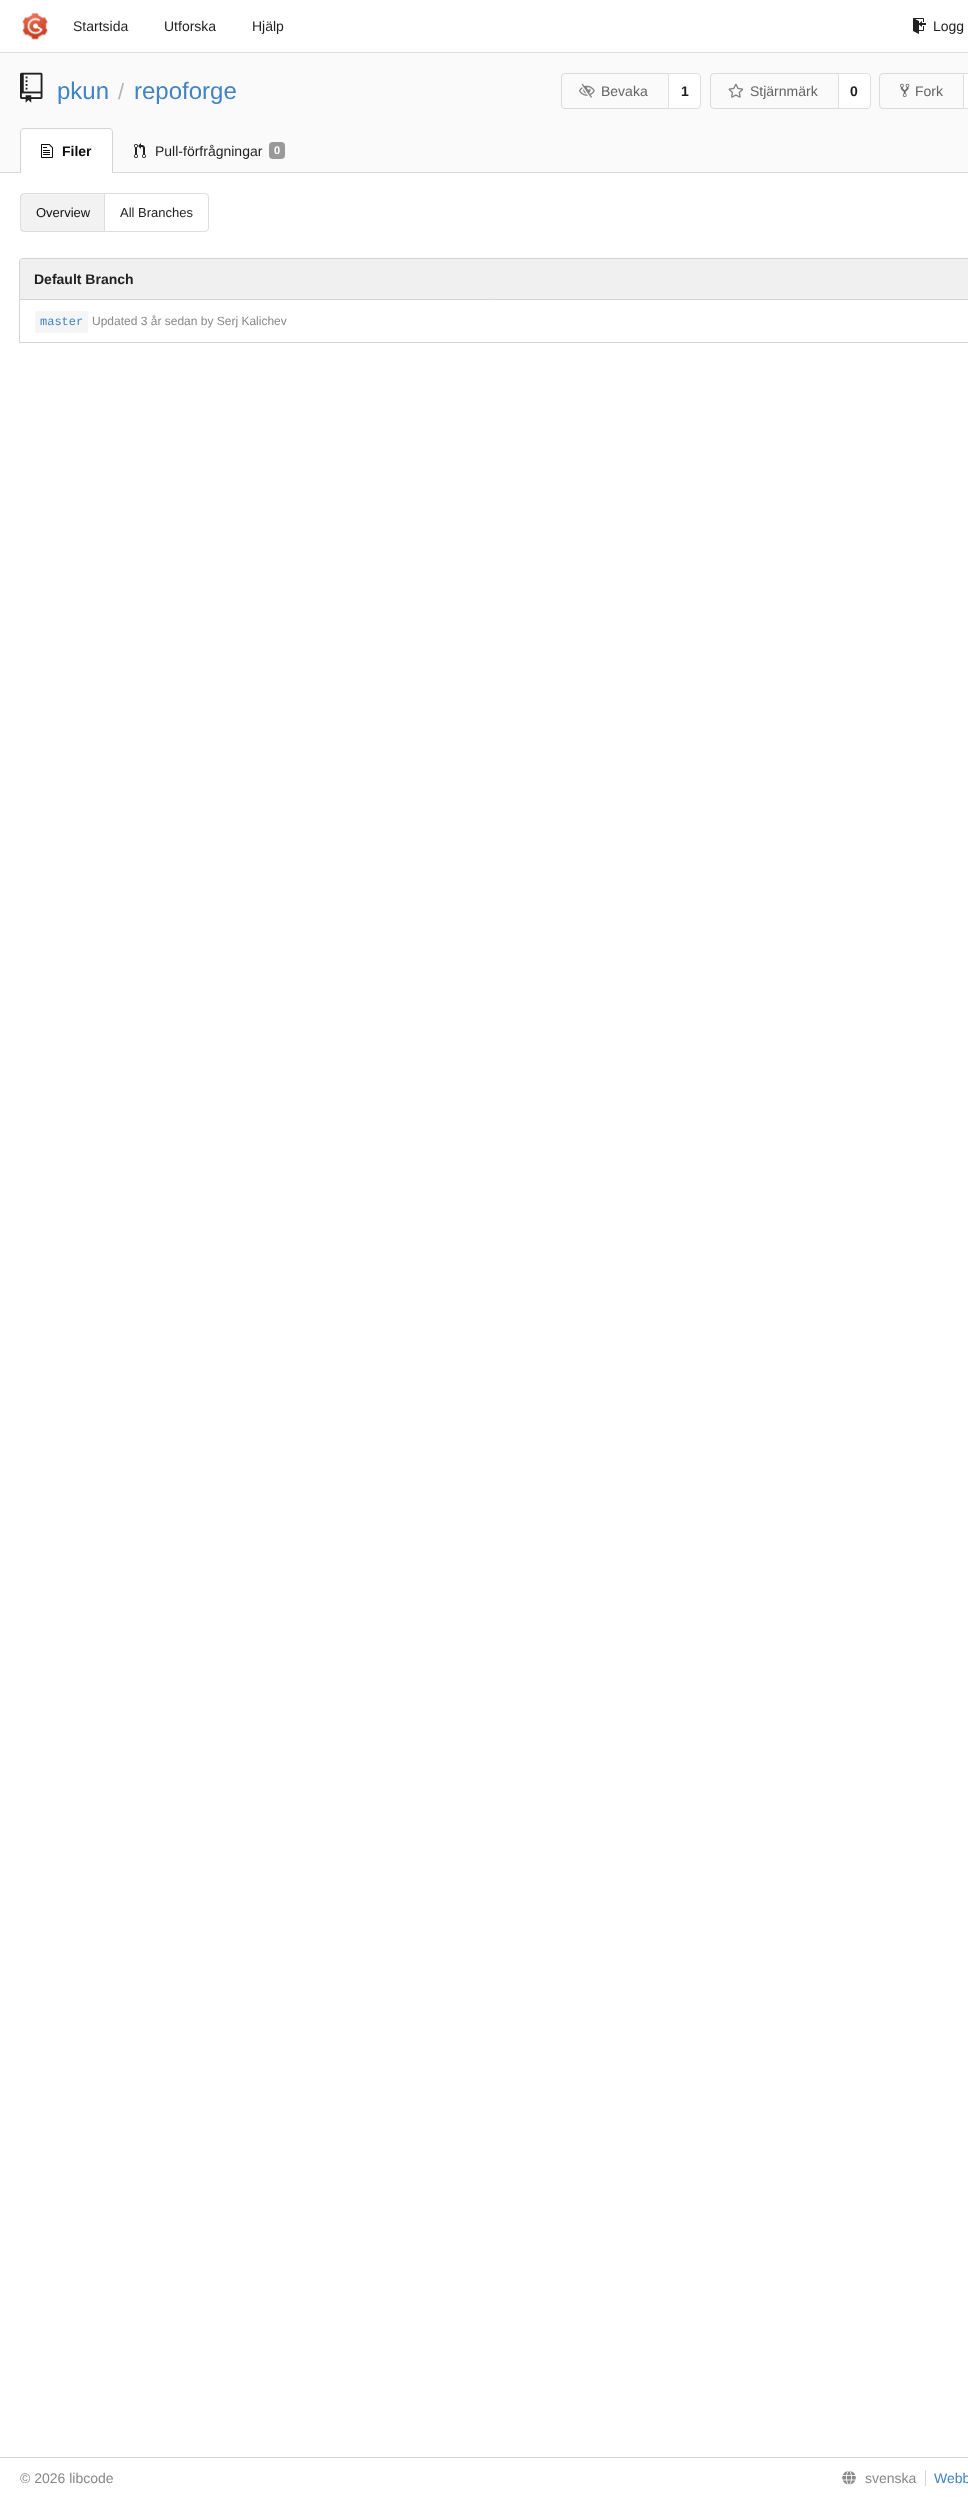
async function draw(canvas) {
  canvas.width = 968
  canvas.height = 2497
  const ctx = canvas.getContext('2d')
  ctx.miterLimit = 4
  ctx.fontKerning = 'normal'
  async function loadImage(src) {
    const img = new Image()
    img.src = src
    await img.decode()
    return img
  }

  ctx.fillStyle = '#fff'
  ctx.fillRect(0, 0, 968, 2497)
  ctx.fillStyle = '#ddd'
  ctx.fillRect(0, 52, 968, 1)
  ctx.drawImage(await loadImage('image0.png'), 22, 12, 26, 29)
  ctx.font = '14px Liberation Sans'
  ctx.fillStyle = '#1f1f1f'
  ctx.fillText('Startsida', 73, 31)
  ctx.fillText('Utforska', 164, 31)
  ctx.fillText('Hjälp', 252, 31)
  ctx.drawImage(await loadImage('image1.png'), 913, 18, 13, 16)
  ctx.fillText('Logg', 933, 31)
  ctx.fillStyle = '#fafafa'
  ctx.fillRect(0, 53, 968, 119)
  ctx.drawImage(await loadImage('image2.png'), 20, 72, 23, 31)
  ctx.font = '24px Liberation Sans'
  ctx.fillStyle = '#4183c4'
  ctx.fillText('pkun', 57, 99)
  ctx.font = '22px Liberation Sans'
  ctx.fillStyle = '#b4b4b4'
  ctx.fillText('/', 118, 99)
  ctx.font = '24px Liberation Sans'
  ctx.fillStyle = '#4183c4'
  ctx.fillText('repoforge', 134, 99)
  ctx.beginPath()
  ctx.roundRect(561.5, 73.5, 107, 35, [3.5, 0, 0, 3.5])
  ctx.strokeStyle = '#dadada'
  ctx.stroke()
  ctx.drawImage(await loadImage('image3.png'), 579, 83, 16, 15)
  ctx.font = '14px Liberation Sans'
  ctx.fillStyle = '#646464'
  ctx.fillText('Bevaka', 601, 96)
  ctx.fillStyle = '#fff'
  ctx.beginPath()
  ctx.roundRect(668.5, 73.5, 32, 35, [0, 3.5, 3.5, 0])
  ctx.fill()
  ctx.strokeStyle = '#dedede'
  ctx.stroke()
  ctx.font = 'bold 14px Liberation Sans'
  ctx.fillStyle = '#1f1f1f'
  ctx.fillText('1', 681, 96)
  ctx.beginPath()
  ctx.roundRect(710.5, 73.5, 128, 35, [3.5, 0, 0, 3.5])
  ctx.strokeStyle = '#dadada'
  ctx.stroke()
  ctx.drawImage(await loadImage('image4.png'), 728, 83, 16, 15)
  ctx.font = '14px Liberation Sans'
  ctx.fillStyle = '#646464'
  ctx.fillText('Stjärnmärk', 750, 96)
  ctx.fillStyle = '#fff'
  ctx.beginPath()
  ctx.roundRect(838.5, 73.5, 32, 35, [0, 3.5, 3.5, 0])
  ctx.fill()
  ctx.strokeStyle = '#dedede'
  ctx.stroke()
  ctx.font = 'bold 14px Liberation Sans'
  ctx.fillStyle = '#1f1f1f'
  ctx.fillText('0', 850, 96)
  ctx.beginPath()
  ctx.roundRect(879.5, 73.5, 84, 35, [3.5, 0, 0, 3.5])
  ctx.strokeStyle = '#dadada'
  ctx.stroke()
  ctx.drawImage(await loadImage('image5.png'), 900, 83, 10, 14)
  ctx.font = '14px Liberation Sans'
  ctx.fillStyle = '#646464'
  ctx.fillText('Fork', 915, 96)
  ctx.fillStyle = '#fff'
  ctx.beginPath()
  ctx.rect(963.5, 73.5, 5, 35)
  ctx.fill()
  ctx.strokeStyle = '#dedede'
  ctx.stroke()
  ctx.fillStyle = '#dadada'
  ctx.fillRect(0, 172, 968, 1)
  ctx.fillStyle = '#fff'
  ctx.beginPath()
  ctx.roundRect(20, 128, 93, 45, [4, 4, 0, 0])
  ctx.fill()
  ctx.fillStyle = '#d4d4d5'
  ctx.beginPath()
  ctx.moveTo(24, 128)
  ctx.lineTo(109, 128)
  ctx.bezierCurveTo(111, 128, 113, 130, 113, 132)
  ctx.lineTo(113, 173)
  ctx.lineTo(20, 173)
  ctx.lineTo(20, 132)
  ctx.bezierCurveTo(20, 130, 22, 128, 24, 128)
  ctx.closePath()
  ctx.moveTo(24, 129)
  ctx.lineTo(109, 129)
  ctx.bezierCurveTo(111, 129, 112, 130, 112, 132)
  ctx.lineTo(112, 173)
  ctx.lineTo(21, 173)
  ctx.lineTo(21, 132)
  ctx.bezierCurveTo(21, 130, 22, 129, 24, 129)
  ctx.closePath()
  ctx.fill('evenodd')
  ctx.drawImage(await loadImage('image6.png'), 41, 144, 12, 14)
  ctx.font = 'bold 14px Liberation Sans'
  ctx.fillStyle = '#0d0d0d'
  ctx.fillText('Filer', 62, 156)
  ctx.drawImage(await loadImage('image7.png'), 134, 143, 12, 15)
  ctx.font = '14px Liberation Sans'
  ctx.fillStyle = '#1f1f1f'
  ctx.fillText('Pull-förfrågningar', 155, 156)
  ctx.fillStyle = '#999'
  ctx.beginPath()
  ctx.roundRect(269, 142, 16, 17, 4)
  ctx.fill()
  ctx.font = 'bold 11px Liberation Sans'
  ctx.fillStyle = '#fff'
  ctx.fillText('0', 274, 154)
  ctx.beginPath()
  ctx.roundRect(20.5, 193.5, 188, 38, 3.5)
  ctx.stroke()
  ctx.fillStyle = '#0000000d'
  ctx.fillRect(21, 194, 83, 37)
  ctx.font = '13px Liberation Sans'
  ctx.fillStyle = '#0d0d0d'
  ctx.fillText('Overview', 36, 217)
  ctx.fillStyle = '#dddede'
  ctx.fillRect(104, 194, 1, 37)
  ctx.fillStyle = '#1f1f1f'
  ctx.fillText('All Branches', 120, 217)
  ctx.fillStyle = '#f0f0f0'
  ctx.beginPath()
  ctx.moveTo(23, 258.5)
  ctx.lineTo(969, 258.5)
  ctx.bezierCurveTo(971, 258.5, 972.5, 260, 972.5, 262)
  ctx.lineTo(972.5, 299.5)
  ctx.lineTo(19.5, 299.5)
  ctx.lineTo(19.5, 262)
  ctx.bezierCurveTo(19.5, 260, 21, 258.5, 23, 258.5)
  ctx.closePath()
  ctx.fill()
  ctx.strokeStyle = '#d4d4d5'
  ctx.stroke()
  ctx.font = 'bold 14px Liberation Sans'
  ctx.fillStyle = '#1f1f1f'
  ctx.fillText('Default Branch', 34, 284)
  ctx.fillStyle = '#d4d4d5'
  ctx.fillRect(19, 342, 949, 1)
  ctx.fillRect(19, 300, 1, 43)
  ctx.fillStyle = '#f5f5f5'
  ctx.fillRect(40, 311, 43, 22)
  ctx.font = '12px Liberation Mono'
  ctx.fillStyle = '#4183c4'
  ctx.fillText('master', 40, 325)
  ctx.fillStyle = '#f5f5f5'
  ctx.beginPath()
  ctx.roundRect(35, 311, 5, 22, [2.5, 0, 0, 2.5])
  ctx.fill()
  ctx.beginPath()
  ctx.roundRect(83, 311, 5, 22, [0, 2.5, 2.5, 0])
  ctx.fill()
  ctx.font = '12px Liberation Sans'
  ctx.fillStyle = '#888'
  ctx.fillText('Updated 3 år sedan by Serj Kalichev', 92, 325)
  ctx.fillStyle = '#d6d6d6'
  ctx.fillRect(0, 2457, 968, 1)
  ctx.font = '14px Liberation Sans'
  ctx.fillStyle = '#888'
  ctx.fillText('© 2026 libcode', 20, 2483)
  ctx.drawImage(await loadImage('image8.png'), 842, 2471, 14, 14)
  ctx.fillText('svenska', 865, 2483)
  ctx.fillStyle = '#4183c4'
  ctx.fillText('Webb', 934, 2483)
  ctx.fillStyle = '#d6d6d6'
  ctx.fillRect(925, 2470, 1, 16)
}

draw(document.querySelector('canvas'))
